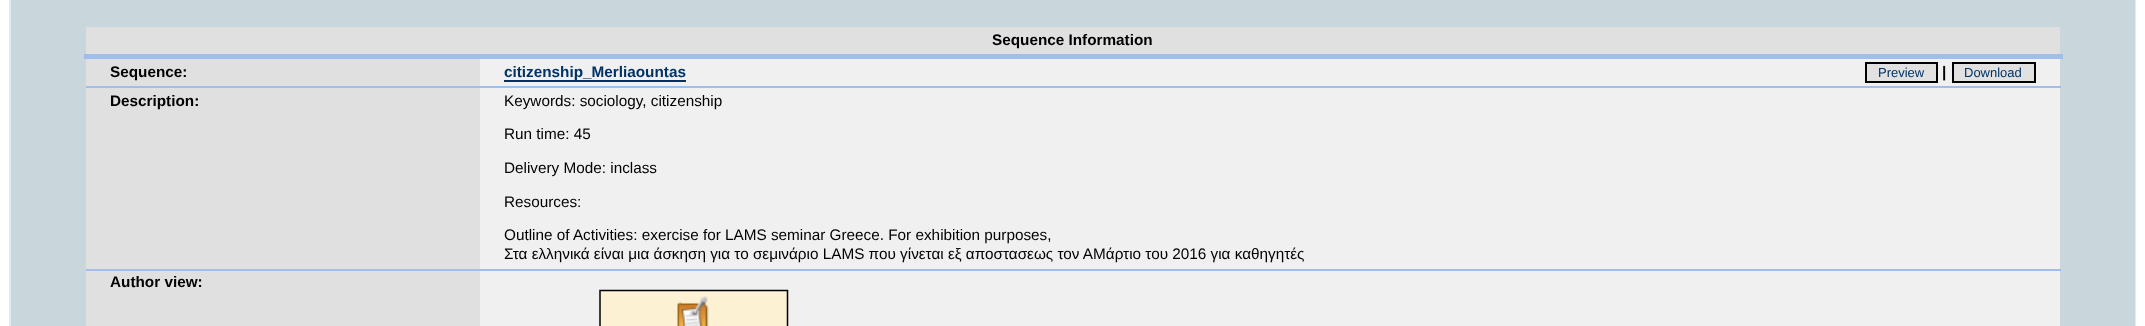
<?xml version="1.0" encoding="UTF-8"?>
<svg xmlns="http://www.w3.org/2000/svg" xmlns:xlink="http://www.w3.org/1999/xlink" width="2145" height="326">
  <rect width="100%" height="100%" fill="#ffffff" />
  <rect x="9" width="2127" height="326" fill="#ddebf5" />
  <rect x="11" width="2124" height="326" fill="#c9d7dc" />
  <rect x="86" y="27" width="1974" height="27" fill="#e0e0e0" />
  <rect x="84" y="54" width="1979" height="5" fill="#a0bdeb" />
  <rect x="86" y="59" width="394" height="27" fill="#e0e0e0" />
  <rect x="480" y="59" width="1580" height="27" fill="#f0f0f0" />
  <rect x="86" y="86" width="1975" height="2" fill="#a0bdeb" />
  <rect x="504" y="80" width="182" height="2" fill="#003366" />
  <rect x="1866" y="63" width="71" height="19" fill="#e1e1e1" stroke="#000000" stroke-width="2" />
  <rect x="1953" y="63" width="82" height="19" fill="#e1e1e1" stroke="#000000" stroke-width="2" />
  <rect x="86" y="88" width="394" height="181" fill="#e0e0e0" />
  <rect x="480" y="88" width="1580" height="181" fill="#f0f0f0" />
  <rect x="86" y="269" width="1975" height="2" fill="#a0bdeb" />
  <rect x="86" y="271" width="394" height="55" fill="#e0e0e0" />
  <rect x="480" y="271" width="1580" height="55" fill="#f0f0f0" />
  <image x="599" y="289" width="190" height="37" xlink:href="image1.png" />
  <text x="992" y="45" style="font-family: Liberation Sans; font-size: 15.3px; font-weight: bold; fill: #000000">Sequence Information</text>
  <text x="110" y="77" style="font-family: Liberation Sans; font-size: 15.3px; font-weight: bold; fill: #000000">Sequence:</text>
  <text x="504" y="77" style="font-family: Liberation Sans; font-size: 15.3px; font-weight: bold; fill: #003366">citizenship_Merliaountas</text>
  <text x="1878" y="77" style="font-family: Liberation Sans; font-size: 13px; fill: #003366">Preview</text>
  <text x="1942" y="77" style="font-family: Liberation Sans; font-size: 15.3px; font-weight: bold; fill: #000000">|</text>
  <text x="1964" y="77" style="font-family: Liberation Sans; font-size: 13px; fill: #003366">Download</text>
  <text x="110" y="106" style="font-family: Liberation Sans; font-size: 15.3px; font-weight: bold; fill: #000000">Description:</text>
  <text x="504" y="106" style="font-family: Liberation Sans; font-size: 15.3px; fill: #000000">Keywords: sociology, citizenship</text>
  <text x="504" y="139" style="font-family: Liberation Sans; font-size: 15.3px; fill: #000000">Run time: 45</text>
  <text x="504" y="173" style="font-family: Liberation Sans; font-size: 15.3px; fill: #000000">Delivery Mode: inclass</text>
  <text x="504" y="207" style="font-family: Liberation Sans; font-size: 15.3px; fill: #000000">Resources:</text>
  <text x="504" y="240" style="font-family: Liberation Sans; font-size: 15.3px; fill: #000000">Outline of Activities: exercise for LAMS seminar Greece. For exhibition purposes,</text>
  <text x="504" y="259" style="font-family: Liberation Sans; font-size: 15.3px; fill: #000000">Στα ελληνικά είναι μια άσκηση για το σεμινάριο LAMS που γίνεται εξ αποστασεως τον ΑΜάρτιο του 2016 για καθηγητές</text>
  <text x="110" y="287" style="font-family: Liberation Sans; font-size: 15.3px; font-weight: bold; fill: #000000">Author view:</text>
</svg>
